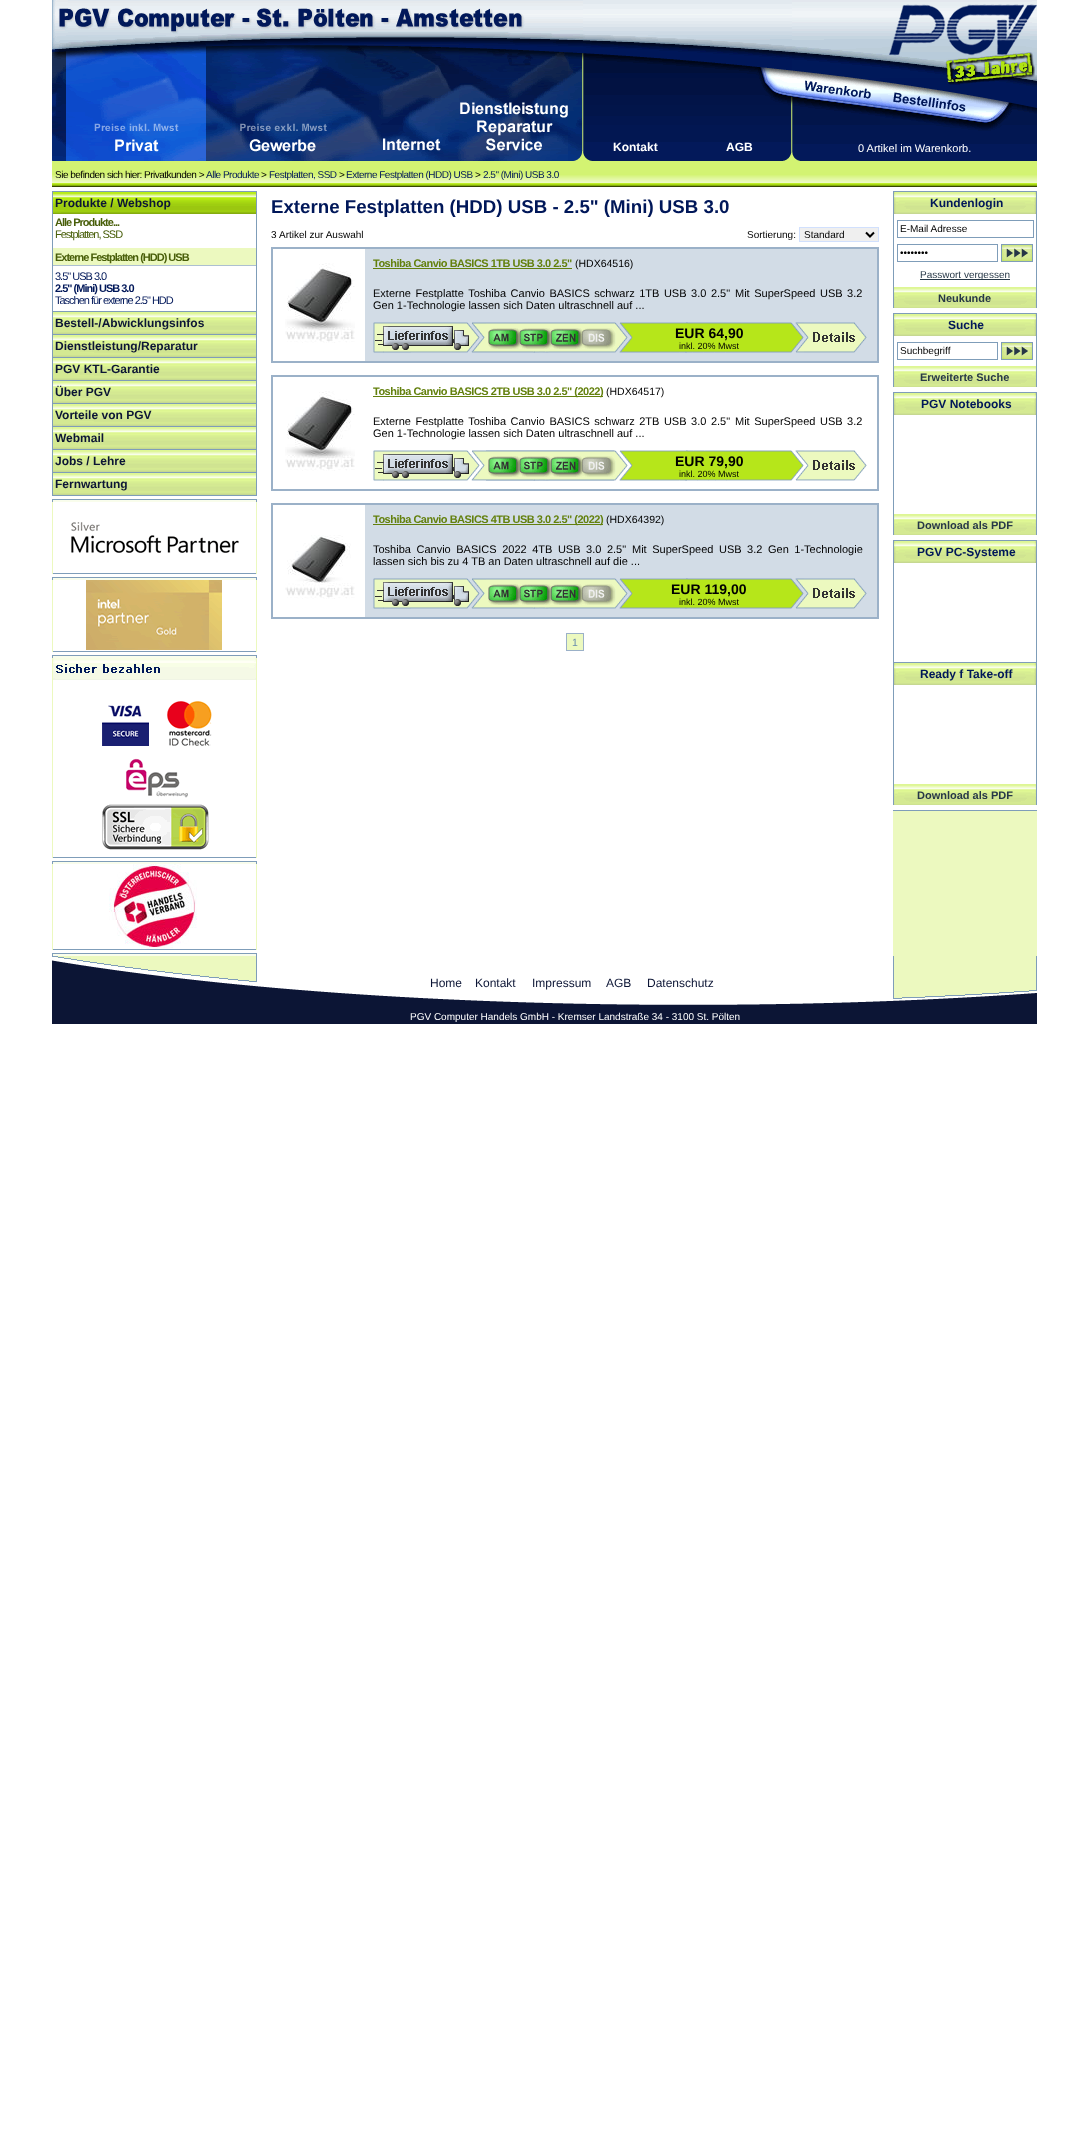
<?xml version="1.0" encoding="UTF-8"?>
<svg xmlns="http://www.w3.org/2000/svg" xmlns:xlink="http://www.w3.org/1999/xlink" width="1089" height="2145">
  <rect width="100%" height="100%" fill="#ffffff" />
  <rect x="364" y="44" width="95" height="1" fill="#061953" />
  <image x="52" y="0" width="531" height="44" xlink:href="image1.png" />
  <image x="52" y="44" width="14" height="117" xlink:href="image2.png" />
  <image x="66" y="44" width="140" height="117" xlink:href="image3.png" />
  <image x="206" y="44" width="158" height="117" xlink:href="image4.png" />
  <image x="364" y="45" width="95" height="116" xlink:href="image5.png" />
  <image x="459" y="44" width="109" height="117" xlink:href="image6.png" />
  <image x="568" y="44" width="15" height="117" xlink:href="image7.png" />
  <image x="583" y="0" width="209" height="78" xlink:href="image8.png" />
  <image x="792" y="0" width="245" height="78" xlink:href="image9.png" />
  <image x="583" y="78" width="209" height="47" xlink:href="image10.png" />
  <image x="792" y="78" width="88" height="47" xlink:href="image11.png" />
  <image x="880" y="78" width="94" height="47" xlink:href="image12.png" />
  <image x="974" y="78" width="63" height="47" xlink:href="image13.png" />
  <image x="583" y="125" width="209" height="36" xlink:href="image14.png" />
  <image x="792" y="125" width="245" height="36" xlink:href="image15.png" />
  <rect x="52" y="161" width="985" height="14" fill="#d3f372" />
  <image x="52" y="175" width="985" height="12" xlink:href="image16.png" />
  <rect x="52" y="502" width="205" height="448" fill="#ecf9bf" />
  <rect x="52.5" y="191.5" width="204" height="304" fill="none" stroke="#7f9db9" />
  <image x="53" y="192" width="203" height="22" xlink:href="image17.png" />
  <rect x="53" y="248" width="203" height="17" fill="#ecf9bf" />
  <rect x="53" y="265" width="203" height="1" fill="#adc0d1" />
  <rect x="53" y="311" width="203" height="1" fill="#7f9db9" />
  <image x="53" y="312" width="203" height="22" xlink:href="image18.png" />
  <rect x="53" y="334" width="203" height="1" fill="#7f9db9" />
  <image x="53" y="335" width="203" height="22" xlink:href="image18.png" />
  <rect x="53" y="357" width="203" height="1" fill="#7f9db9" />
  <image x="53" y="358" width="203" height="22" xlink:href="image18.png" />
  <rect x="53" y="380" width="203" height="1" fill="#7f9db9" />
  <image x="53" y="381" width="203" height="22" xlink:href="image18.png" />
  <rect x="53" y="403" width="203" height="1" fill="#7f9db9" />
  <image x="53" y="404" width="203" height="22" xlink:href="image18.png" />
  <rect x="53" y="426" width="203" height="1" fill="#7f9db9" />
  <image x="53" y="427" width="203" height="22" xlink:href="image18.png" />
  <rect x="53" y="449" width="203" height="1" fill="#7f9db9" />
  <image x="53" y="450" width="203" height="22" xlink:href="image18.png" />
  <rect x="53" y="472" width="203" height="1" fill="#7f9db9" />
  <image x="53" y="473" width="203" height="22" xlink:href="image18.png" />
  <image x="52" y="496" width="205" height="6" xlink:href="image19.png" />
  <rect x="53" y="573" width="203" height="1" fill="#7f9db9" />
  <image x="53" y="502" width="203" height="71" xlink:href="image20.png" />
  <image x="52" y="574" width="205" height="6" xlink:href="image19.png" />
  <rect x="53" y="651" width="203" height="1" fill="#7f9db9" />
  <image x="53" y="580" width="203" height="71" xlink:href="image21.png" />
  <image x="52" y="652" width="205" height="6" xlink:href="image19.png" />
  <rect x="53" y="857" width="203" height="1" fill="#7f9db9" />
  <image x="53" y="658" width="203" height="199" xlink:href="image22.png" />
  <image x="52" y="858" width="205" height="6" xlink:href="image19.png" />
  <rect x="53" y="949" width="203" height="1" fill="#7f9db9" />
  <image x="53" y="864" width="203" height="85" xlink:href="image23.png" />
  <image x="52" y="950" width="205" height="6" xlink:href="image19.png" />
  <rect x="893" y="811" width="144" height="145" fill="#ecf9bf" />
  <rect x="799.5" y="227.5" width="79" height="14" fill="#efefef" stroke="#d1e0fd" />
  <path d="M 866 232.5 l 4 4 l 4 -4" fill="none" stroke="#000000" stroke-width="2" />
  <rect x="271" y="247" width="608" height="2" fill="#9bb1c8" />
  <rect x="271" y="361" width="94" height="2" fill="#9bb1c8" />
  <rect x="271" y="247" width="2" height="116" fill="#9bb1c8" />
  <image x="285" y="263" width="70" height="80" xlink:href="image24.png" />
  <rect x="365" y="249" width="512" height="112" fill="#d2dce6" />
  <rect x="877" y="247" width="2" height="116" fill="#9bb1c8" />
  <rect x="373" y="268" width="199" height="1" fill="#63800d" />
  <rect x="365" y="361" width="514" height="2" fill="#9bb1c8" />
  <image x="373" y="322" width="113" height="31" xlink:href="image25.png" />
  <image x="486" y="322" width="128" height="31" xlink:href="image26.png" />
  <image x="488" y="328" width="30" height="21" xlink:href="image27.png" />
  <image x="518" y="328" width="32" height="21" xlink:href="image28.png" />
  <image x="550" y="328" width="32" height="21" xlink:href="image29.png" />
  <image x="582" y="328" width="32" height="21" xlink:href="image30.png" />
  <image x="614" y="322" width="190" height="31" xlink:href="image31.png" />
  <image x="804" y="322" width="63" height="31" xlink:href="image32.png" />
  <rect x="271" y="375" width="608" height="2" fill="#9bb1c8" />
  <rect x="271" y="489" width="94" height="2" fill="#9bb1c8" />
  <rect x="271" y="375" width="2" height="116" fill="#9bb1c8" />
  <image x="285" y="391" width="70" height="80" xlink:href="image24.png" />
  <rect x="877" y="375" width="2" height="116" fill="#9bb1c8" />
  <rect x="373" y="396" width="230" height="1" fill="#63800d" />
  <rect x="365" y="489" width="514" height="2" fill="#9bb1c8" />
  <image x="373" y="450" width="113" height="31" xlink:href="image33.png" />
  <image x="486" y="450" width="128" height="31" xlink:href="image26.png" />
  <image x="488" y="456" width="30" height="21" xlink:href="image27.png" />
  <image x="518" y="456" width="32" height="21" xlink:href="image28.png" />
  <image x="550" y="456" width="32" height="21" xlink:href="image29.png" />
  <image x="582" y="456" width="32" height="21" xlink:href="image30.png" />
  <image x="614" y="450" width="190" height="31" xlink:href="image34.png" />
  <image x="804" y="450" width="63" height="31" xlink:href="image35.png" />
  <rect x="271" y="503" width="608" height="2" fill="#9bb1c8" />
  <rect x="271" y="617" width="94" height="2" fill="#9bb1c8" />
  <rect x="271" y="503" width="2" height="116" fill="#9bb1c8" />
  <image x="285" y="535" width="70" height="64" xlink:href="image36.png" />
  <rect x="365" y="505" width="512" height="112" fill="#d2dce6" />
  <rect x="877" y="503" width="2" height="116" fill="#9bb1c8" />
  <rect x="373" y="524" width="230" height="1" fill="#63800d" />
  <rect x="365" y="617" width="514" height="2" fill="#9bb1c8" />
  <image x="373" y="578" width="113" height="31" xlink:href="image25.png" />
  <image x="486" y="578" width="128" height="31" xlink:href="image26.png" />
  <image x="488" y="584" width="30" height="21" xlink:href="image27.png" />
  <image x="518" y="584" width="32" height="21" xlink:href="image28.png" />
  <image x="550" y="584" width="32" height="21" xlink:href="image29.png" />
  <image x="582" y="584" width="32" height="21" xlink:href="image30.png" />
  <image x="614" y="578" width="190" height="31" xlink:href="image31.png" />
  <image x="804" y="578" width="63" height="31" xlink:href="image32.png" />
  <rect x="566.5" y="633.5" width="17" height="17" fill="#ecf9bf" stroke="#9bb1c8" />
  <rect x="893" y="191" width="144" height="1" fill="#7f9db9" />
  <rect x="1036" y="191" width="1" height="96" fill="#7f9db9" />
  <rect x="893" y="191" width="1" height="96" fill="#7f9db9" />
  <image x="894" y="192" width="142" height="22" xlink:href="image37.png" />
  <rect x="897.5" y="220.5" width="136" height="17" fill="none" stroke="#7f9db9" />
  <rect x="897.5" y="244.5" width="100" height="17" fill="none" stroke="#7f9db9" />
  <image x="1001" y="244" width="32" height="18" xlink:href="image38.png" />
  <rect x="920" y="279" width="90" height="1" fill="#273847" />
  <image x="893" y="287" width="144" height="21" xlink:href="image39.png" />
  <rect x="893" y="313" width="144" height="1" fill="#7f9db9" />
  <rect x="1036" y="313" width="1" height="53" fill="#7f9db9" />
  <rect x="893" y="313" width="1" height="53" fill="#7f9db9" />
  <image x="894" y="314" width="142" height="22" xlink:href="image37.png" />
  <rect x="897.5" y="342.5" width="100" height="17" fill="none" stroke="#7f9db9" />
  <image x="1001" y="342" width="32" height="18" xlink:href="image38.png" />
  <image x="893" y="366" width="144" height="21" xlink:href="image39.png" />
  <rect x="893" y="392" width="144" height="1" fill="#7f9db9" />
  <rect x="1036" y="392" width="1" height="122" fill="#7f9db9" />
  <rect x="893" y="392" width="1" height="122" fill="#7f9db9" />
  <image x="894" y="393" width="142" height="22" xlink:href="image37.png" />
  <image x="893" y="514" width="144" height="21" xlink:href="image39.png" />
  <rect x="893" y="540" width="144" height="1" fill="#7f9db9" />
  <rect x="1036" y="540" width="1" height="122" fill="#7f9db9" />
  <rect x="893" y="540" width="1" height="122" fill="#7f9db9" />
  <image x="894" y="541" width="142" height="22" xlink:href="image37.png" />
  <rect x="893" y="662" width="144" height="1" fill="#7f9db9" />
  <rect x="1036" y="662" width="1" height="122" fill="#7f9db9" />
  <rect x="893" y="662" width="1" height="122" fill="#7f9db9" />
  <image x="894" y="663" width="142" height="22" xlink:href="image37.png" />
  <image x="893" y="784" width="144" height="21" xlink:href="image39.png" />
  <rect x="893" y="810" width="144" height="1" fill="#7f9db9" />
  <image x="52" y="956" width="985" height="68" xlink:href="image40.png" />
  <text x="613" y="151" style="font-family: Liberation Sans; font-size: 12px; font-weight: bold; fill: #ffffff">Kontakt</text>
  <text x="726" y="151" style="font-family: Liberation Sans; font-size: 12px; font-weight: bold; fill: #ffffff">AGB</text>
  <text x="858" y="152" style="font-family: Liberation Sans; font-size: 11px; fill: #ffffff">0 Artikel im Warenkorb.</text>
  <text x="55" y="178" style="font-family: Liberation Sans; font-size: 10px; letter-spacing: -0.5px; fill: #000000">Sie befinden sich hier:</text>
  <text x="144" y="178" style="font-family: Liberation Sans; font-size: 10px; letter-spacing: -0.5px; fill: #000000">Privatkunden &gt;</text>
  <text x="206" y="178" style="font-family: Liberation Sans; font-size: 10px; letter-spacing: -0.5px; fill: #001759">Alle Produkte</text>
  <text x="261" y="178" style="font-family: Liberation Sans; font-size: 10px; letter-spacing: -0.5px; fill: #000000">&gt;</text>
  <text x="269" y="178" style="font-family: Liberation Sans; font-size: 10px; letter-spacing: -0.5px; fill: #001759">Festplatten, SSD</text>
  <text x="339" y="178" style="font-family: Liberation Sans; font-size: 10px; letter-spacing: -0.5px; fill: #000000">&gt;</text>
  <text x="346" y="178" style="font-family: Liberation Sans; font-size: 10px; letter-spacing: -0.5px; fill: #001759">Externe Festplatten (HDD) USB</text>
  <text x="475" y="178" style="font-family: Liberation Sans; font-size: 10px; letter-spacing: -0.5px; fill: #000000">&gt;</text>
  <text x="483" y="178" style="font-family: Liberation Sans; font-size: 10px; letter-spacing: -0.5px; fill: #001759">2.5" (Mini) USB 3.0</text>
  <text x="55" y="207" style="font-family: Liberation Sans; font-size: 12px; font-weight: bold; fill: #0c1535">Produkte / Webshop</text>
  <text x="55" y="226" style="font-family: Liberation Sans; font-size: 11px; font-weight: bold; letter-spacing: -1px; fill: #485e09">Alle Produkte...</text>
  <text x="55" y="238" style="font-family: Liberation Sans; font-size: 11px; letter-spacing: -1px; fill: #485e09">Festplatten, SSD</text>
  <text x="55" y="261" style="font-family: Liberation Sans; font-size: 11px; font-weight: bold; letter-spacing: -1px; fill: #485e09">Externe Festplatten (HDD) USB</text>
  <text x="55" y="280" style="font-family: Liberation Sans; font-size: 11px; letter-spacing: -1px; fill: #001759">3.5" USB 3.0</text>
  <text x="55" y="292" style="font-family: Liberation Sans; font-size: 11px; font-weight: bold; letter-spacing: -1px; fill: #001759">2.5" (Mini) USB 3.0</text>
  <text x="55" y="304" style="font-family: Liberation Sans; font-size: 11px; letter-spacing: -1px; fill: #001759">Taschen für externe 2.5" HDD</text>
  <text x="55" y="327" style="font-family: Liberation Sans; font-size: 12px; font-weight: bold; fill: #0c1535">Bestell-/Abwicklungsinfos</text>
  <text x="55" y="350" style="font-family: Liberation Sans; font-size: 12px; font-weight: bold; fill: #0c1535">Dienstleistung/Reparatur</text>
  <text x="55" y="373" style="font-family: Liberation Sans; font-size: 12px; font-weight: bold; fill: #0c1535">PGV KTL-Garantie</text>
  <text x="55" y="396" style="font-family: Liberation Sans; font-size: 12px; font-weight: bold; fill: #0c1535">Über PGV</text>
  <text x="55" y="419" style="font-family: Liberation Sans; font-size: 12px; font-weight: bold; fill: #0c1535">Vorteile von PGV</text>
  <text x="55" y="442" style="font-family: Liberation Sans; font-size: 12px; font-weight: bold; fill: #0c1535">Webmail</text>
  <text x="55" y="465" style="font-family: Liberation Sans; font-size: 12px; font-weight: bold; fill: #0c1535">Jobs / Lehre</text>
  <text x="55" y="488" style="font-family: Liberation Sans; font-size: 12px; font-weight: bold; fill: #0c1535">Fernwartung</text>
  <text x="271" y="213" style="font-family: Liberation Sans; font-size: 18.7px; font-weight: bold; fill: #001759">Externe Festplatten (HDD) USB - 2.5" (Mini) USB 3.0</text>
  <text x="271" y="238" style="font-family: Liberation Sans; font-size: 10px; fill: #000000">3</text>
  <text x="279" y="238" style="font-family: Liberation Sans; font-size: 10px; fill: #000000">Artikel zur Auswahl</text>
  <text x="747" y="238" style="font-family: Liberation Sans; font-size: 10px; fill: #000000">Sortierung:</text>
  <text x="804" y="238" style="font-family: Liberation Sans; font-size: 10px; fill: #000000">Standard</text>
  <text x="373" y="267" style="font-family: Liberation Sans; font-size: 11px; font-weight: bold; letter-spacing: -0.5px; fill: #63800d">Toshiba Canvio BASICS 1TB USB 3.0 2.5"</text>
  <text x="575" y="267" style="font-family: Liberation Sans; font-size: 10.5px; fill: #000000">(HDX64516)</text>
  <text x="373" y="297" word-spacing="1.5" style="font-family: Liberation Sans; font-size: 11px; fill: #000000">Externe Festplatte Toshiba Canvio BASICS schwarz 1TB USB 3.0 2.5"</text>
  <text x="735" y="297" word-spacing="1.5" style="font-family: Liberation Sans; font-size: 11px; fill: #000000">Mit SuperSpeed USB 3.2</text>
  <text x="373" y="309" style="font-family: Liberation Sans; font-size: 11px; fill: #000000">Gen 1-Technologie lassen sich Daten ultraschnell auf ...</text>
  <text x="675" y="338" style="font-family: Liberation Sans; font-size: 14px; font-weight: bold; fill: #000000">EUR 64,90</text>
  <text x="679" y="349" style="font-family: Liberation Sans; font-size: 9px; fill: #000000">inkl. 20% Mwst</text>
  <text x="373" y="395" style="font-family: Liberation Sans; font-size: 11px; font-weight: bold; letter-spacing: -0.5px; fill: #63800d">Toshiba Canvio BASICS 2TB USB 3.0 2.5" (2022)</text>
  <text x="606" y="395" style="font-family: Liberation Sans; font-size: 10.5px; fill: #000000">(HDX64517)</text>
  <text x="373" y="425" word-spacing="1.5" style="font-family: Liberation Sans; font-size: 11px; fill: #000000">Externe Festplatte Toshiba Canvio BASICS schwarz 2TB USB 3.0 2.5"</text>
  <text x="735" y="425" word-spacing="1.5" style="font-family: Liberation Sans; font-size: 11px; fill: #000000">Mit SuperSpeed USB 3.2</text>
  <text x="373" y="437" style="font-family: Liberation Sans; font-size: 11px; fill: #000000">Gen 1-Technologie lassen sich Daten ultraschnell auf ...</text>
  <text x="675" y="466" style="font-family: Liberation Sans; font-size: 14px; font-weight: bold; fill: #000000">EUR 79,90</text>
  <text x="679" y="477" style="font-family: Liberation Sans; font-size: 9px; fill: #000000">inkl. 20% Mwst</text>
  <text x="373" y="523" style="font-family: Liberation Sans; font-size: 11px; font-weight: bold; letter-spacing: -0.5px; fill: #63800d">Toshiba Canvio BASICS 4TB USB 3.0 2.5" (2022)</text>
  <text x="606" y="523" style="font-family: Liberation Sans; font-size: 10.5px; fill: #000000">(HDX64392)</text>
  <text x="373" y="553" word-spacing="2.5" style="font-family: Liberation Sans; font-size: 11px; fill: #000000">Toshiba Canvio BASICS 2022 4TB USB 3.0 2.5"</text>
  <text x="632" y="553" word-spacing="2.5" style="font-family: Liberation Sans; font-size: 11px; fill: #000000">Mit SuperSpeed USB 3.2 Gen 1-Technologie</text>
  <text x="373" y="565" style="font-family: Liberation Sans; font-size: 11px; fill: #000000">lassen sich bis zu 4 TB an Daten ultraschnell auf die ...</text>
  <text x="671" y="594" style="font-family: Liberation Sans; font-size: 14px; font-weight: bold; fill: #000000">EUR 119,00</text>
  <text x="679" y="605" style="font-family: Liberation Sans; font-size: 9px; fill: #000000">inkl. 20% Mwst</text>
  <text x="572" y="646" style="font-family: Liberation Sans; font-size: 10.5px; fill: #688cac">1</text>
  <text x="930" y="207" style="font-family: Liberation Sans; font-size: 12px; font-weight: bold; fill: #001759">Kundenlogin</text>
  <text x="900" y="232" style="font-family: Liberation Sans; font-size: 10px; fill: #000000">E-Mail Adresse</text>
  <text x="900" y="256" style="font-family: Liberation Sans; font-size: 10px; fill: #000000">••••••••</text>
  <text x="920" y="278" style="font-family: Liberation Sans; font-size: 10px; fill: #273847">Passwort vergessen</text>
  <text x="938" y="302" style="font-family: Liberation Sans; font-size: 11px; font-weight: bold; fill: #273847">Neukunde</text>
  <text x="948" y="329" style="font-family: Liberation Sans; font-size: 12px; font-weight: bold; fill: #001759">Suche</text>
  <text x="900" y="354" style="font-family: Liberation Sans; font-size: 10px; fill: #000000">Suchbegriff</text>
  <text x="920" y="381" style="font-family: Liberation Sans; font-size: 11px; font-weight: bold; fill: #273847">Erweiterte Suche</text>
  <text x="921" y="408" style="font-family: Liberation Sans; font-size: 12px; font-weight: bold; fill: #001759">PGV Notebooks</text>
  <text x="917" y="529" style="font-family: Liberation Sans; font-size: 11px; font-weight: bold; fill: #273847">Download als PDF</text>
  <text x="917" y="556" style="font-family: Liberation Sans; font-size: 12px; font-weight: bold; fill: #001759">PGV PC-Systeme</text>
  <text x="920" y="678" style="font-family: Liberation Sans; font-size: 12px; font-weight: bold; fill: #001759">Ready f Take-off</text>
  <text x="917" y="799" style="font-family: Liberation Sans; font-size: 11px; font-weight: bold; fill: #273847">Download als PDF</text>
  <text x="430" y="987" style="font-family: Liberation Sans; font-size: 12px; fill: #0c1535">Home</text>
  <text x="475" y="987" style="font-family: Liberation Sans; font-size: 12px; fill: #0c1535">Kontakt</text>
  <text x="532" y="987" style="font-family: Liberation Sans; font-size: 12px; fill: #0c1535">Impressum</text>
  <text x="606" y="987" style="font-family: Liberation Sans; font-size: 12px; fill: #0c1535">AGB</text>
  <text x="647" y="987" style="font-family: Liberation Sans; font-size: 12px; fill: #0c1535">Datenschutz</text>
  <text x="410" y="1020" style="font-family: Liberation Sans; font-size: 10px; fill: #ffffff">PGV Computer Handels GmbH - Kremser Landstraße 34 - 3100 St. Pölten</text>
</svg>
